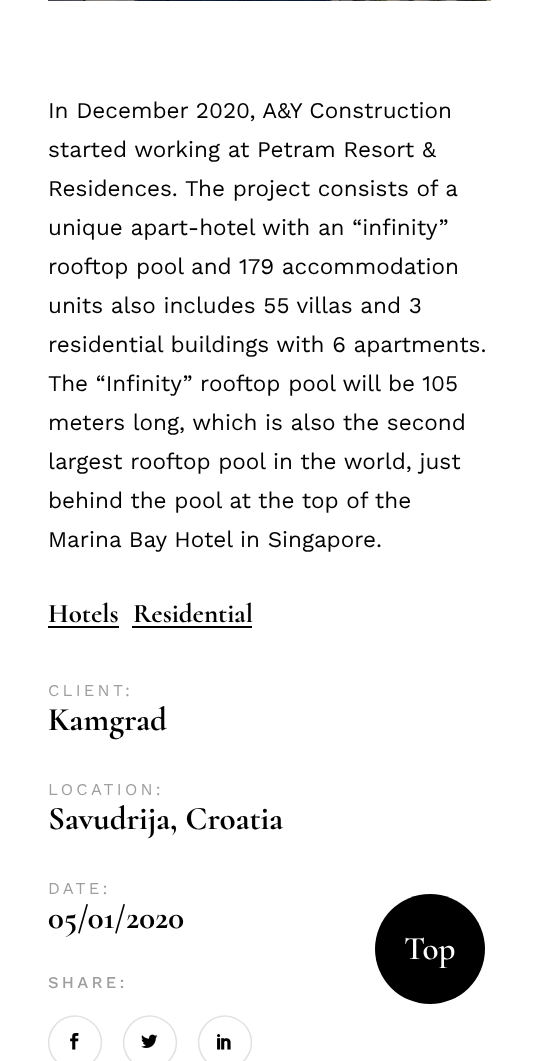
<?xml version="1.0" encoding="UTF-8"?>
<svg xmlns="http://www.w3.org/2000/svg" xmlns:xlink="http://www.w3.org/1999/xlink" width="538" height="1061">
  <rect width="100%" height="100%" fill="#ffffff" />
  <image x="48" y="0" width="443" height="1" xlink:href="image1.png" />
  <rect x="48" y="626" width="71" height="2" fill="#000000" />
  <rect x="132" y="626" width="120" height="2" fill="#000000" />
  <image x="70" y="1033" width="9" height="17" xlink:href="image2.png" />
  <path d="M 60 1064 c -12 -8 -15 -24.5 -6.5 -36.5 c 8 -12 24.5 -15 36.5 -6.5 c 12 8 15 24.5 6.5 36.5 c -8 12 -24.5 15 -36.5 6.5" fill="none" stroke="#e1e1e1" stroke-width="1.5" />
  <image x="141" y="1034" width="17" height="14" xlink:href="image3.png" />
  <path d="M 135 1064 c -12 -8 -15 -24.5 -6.5 -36.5 c 8 -12 24.5 -15 36.5 -6.5 c 12 8 15 24.5 6.5 36.5 c -8 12 -24.5 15 -36.5 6.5" fill="none" stroke="#e1e1e1" stroke-width="1.5" />
  <image x="217" y="1034" width="14" height="16" xlink:href="image4.png" />
  <path d="M 210 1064 c -12 -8 -15 -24.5 -6.5 -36.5 c 8 -12 24.5 -15 36.5 -6.5 c 12 8 15 24.5 6.5 36.5 c -8 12 -24.5 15 -36.5 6.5" fill="none" stroke="#e1e1e1" stroke-width="1.5" />
  <circle cx="430" cy="949" r="55" fill="#000000" />
  <text x="48" y="118" style="font-family: Work Sans; font-size: 22.5px; fill: #000000">In December 2020, A&amp;Y Construction</text>
  <text x="48" y="157" style="font-family: Work Sans; font-size: 22.5px; fill: #000000">started working at Petram Resort &amp;</text>
  <text x="48" y="196" style="font-family: Work Sans; font-size: 22.5px; fill: #000000">Residences. The project consists of a</text>
  <text x="48" y="235" style="font-family: Work Sans; font-size: 22.5px; fill: #000000">unique apart-hotel with an “infinity”</text>
  <text x="48" y="274" style="font-family: Work Sans; font-size: 22.5px; fill: #000000">rooftop pool and 179 accommodation</text>
  <text x="48" y="313" style="font-family: Work Sans; font-size: 22.5px; fill: #000000">units also includes 55 villas and 3</text>
  <text x="48" y="352" style="font-family: Work Sans; font-size: 22.5px; fill: #000000">residential buildings with 6 apartments.</text>
  <text x="48" y="391" style="font-family: Work Sans; font-size: 22.5px; fill: #000000">The “Infinity” rooftop pool will be 105</text>
  <text x="48" y="430" style="font-family: Work Sans; font-size: 22.5px; fill: #000000">meters long, which is also the second</text>
  <text x="48" y="469" style="font-family: Work Sans; font-size: 22.5px; fill: #000000">largest rooftop pool in the world, just</text>
  <text x="48" y="508" style="font-family: Work Sans; font-size: 22.5px; fill: #000000">behind the pool at the top of the</text>
  <text x="48" y="547" style="font-family: Work Sans; font-size: 22.5px; fill: #000000">Marina Bay Hotel in Singapore.</text>
  <text x="48" y="622" style="font-family: Cormorant; font-size: 27px; font-weight: bold; fill: #000000">Hotels</text>
  <text x="133" y="622" style="font-family: Cormorant; font-size: 27px; font-weight: bold; fill: #000000">Residential</text>
  <text x="48" y="696" style="font-family: Work Sans; font-size: 16.5px; letter-spacing: 3.25px; fill: #9e9e9e">CLIENT:</text>
  <text x="48" y="730" style="font-family: Cormorant; font-size: 33px; font-weight: bold; fill: #000000">Kamgrad</text>
  <text x="48" y="795" style="font-family: Work Sans; font-size: 16.5px; letter-spacing: 3.25px; fill: #9e9e9e">LOCATION:</text>
  <text x="48" y="829" style="font-family: Cormorant; font-size: 33px; font-weight: bold; fill: #000000">Savudrija, Croatia</text>
  <text x="48" y="894" style="font-family: Work Sans; font-size: 16.5px; letter-spacing: 3.25px; fill: #9e9e9e">DATE:</text>
  <text x="48" y="928" style="font-family: Cormorant; font-size: 33px; font-weight: bold; fill: #000000">05/01/2020</text>
  <text x="48" y="988" style="font-family: Work Sans; font-size: 16.5px; font-weight: 500; letter-spacing: 3.25px; fill: #9e9e9e">SHARE:</text>
  <text x="404" y="959" style="font-family: Cormorant; font-size: 33px; font-weight: 600; fill: #ffffff">Top</text>
</svg>
